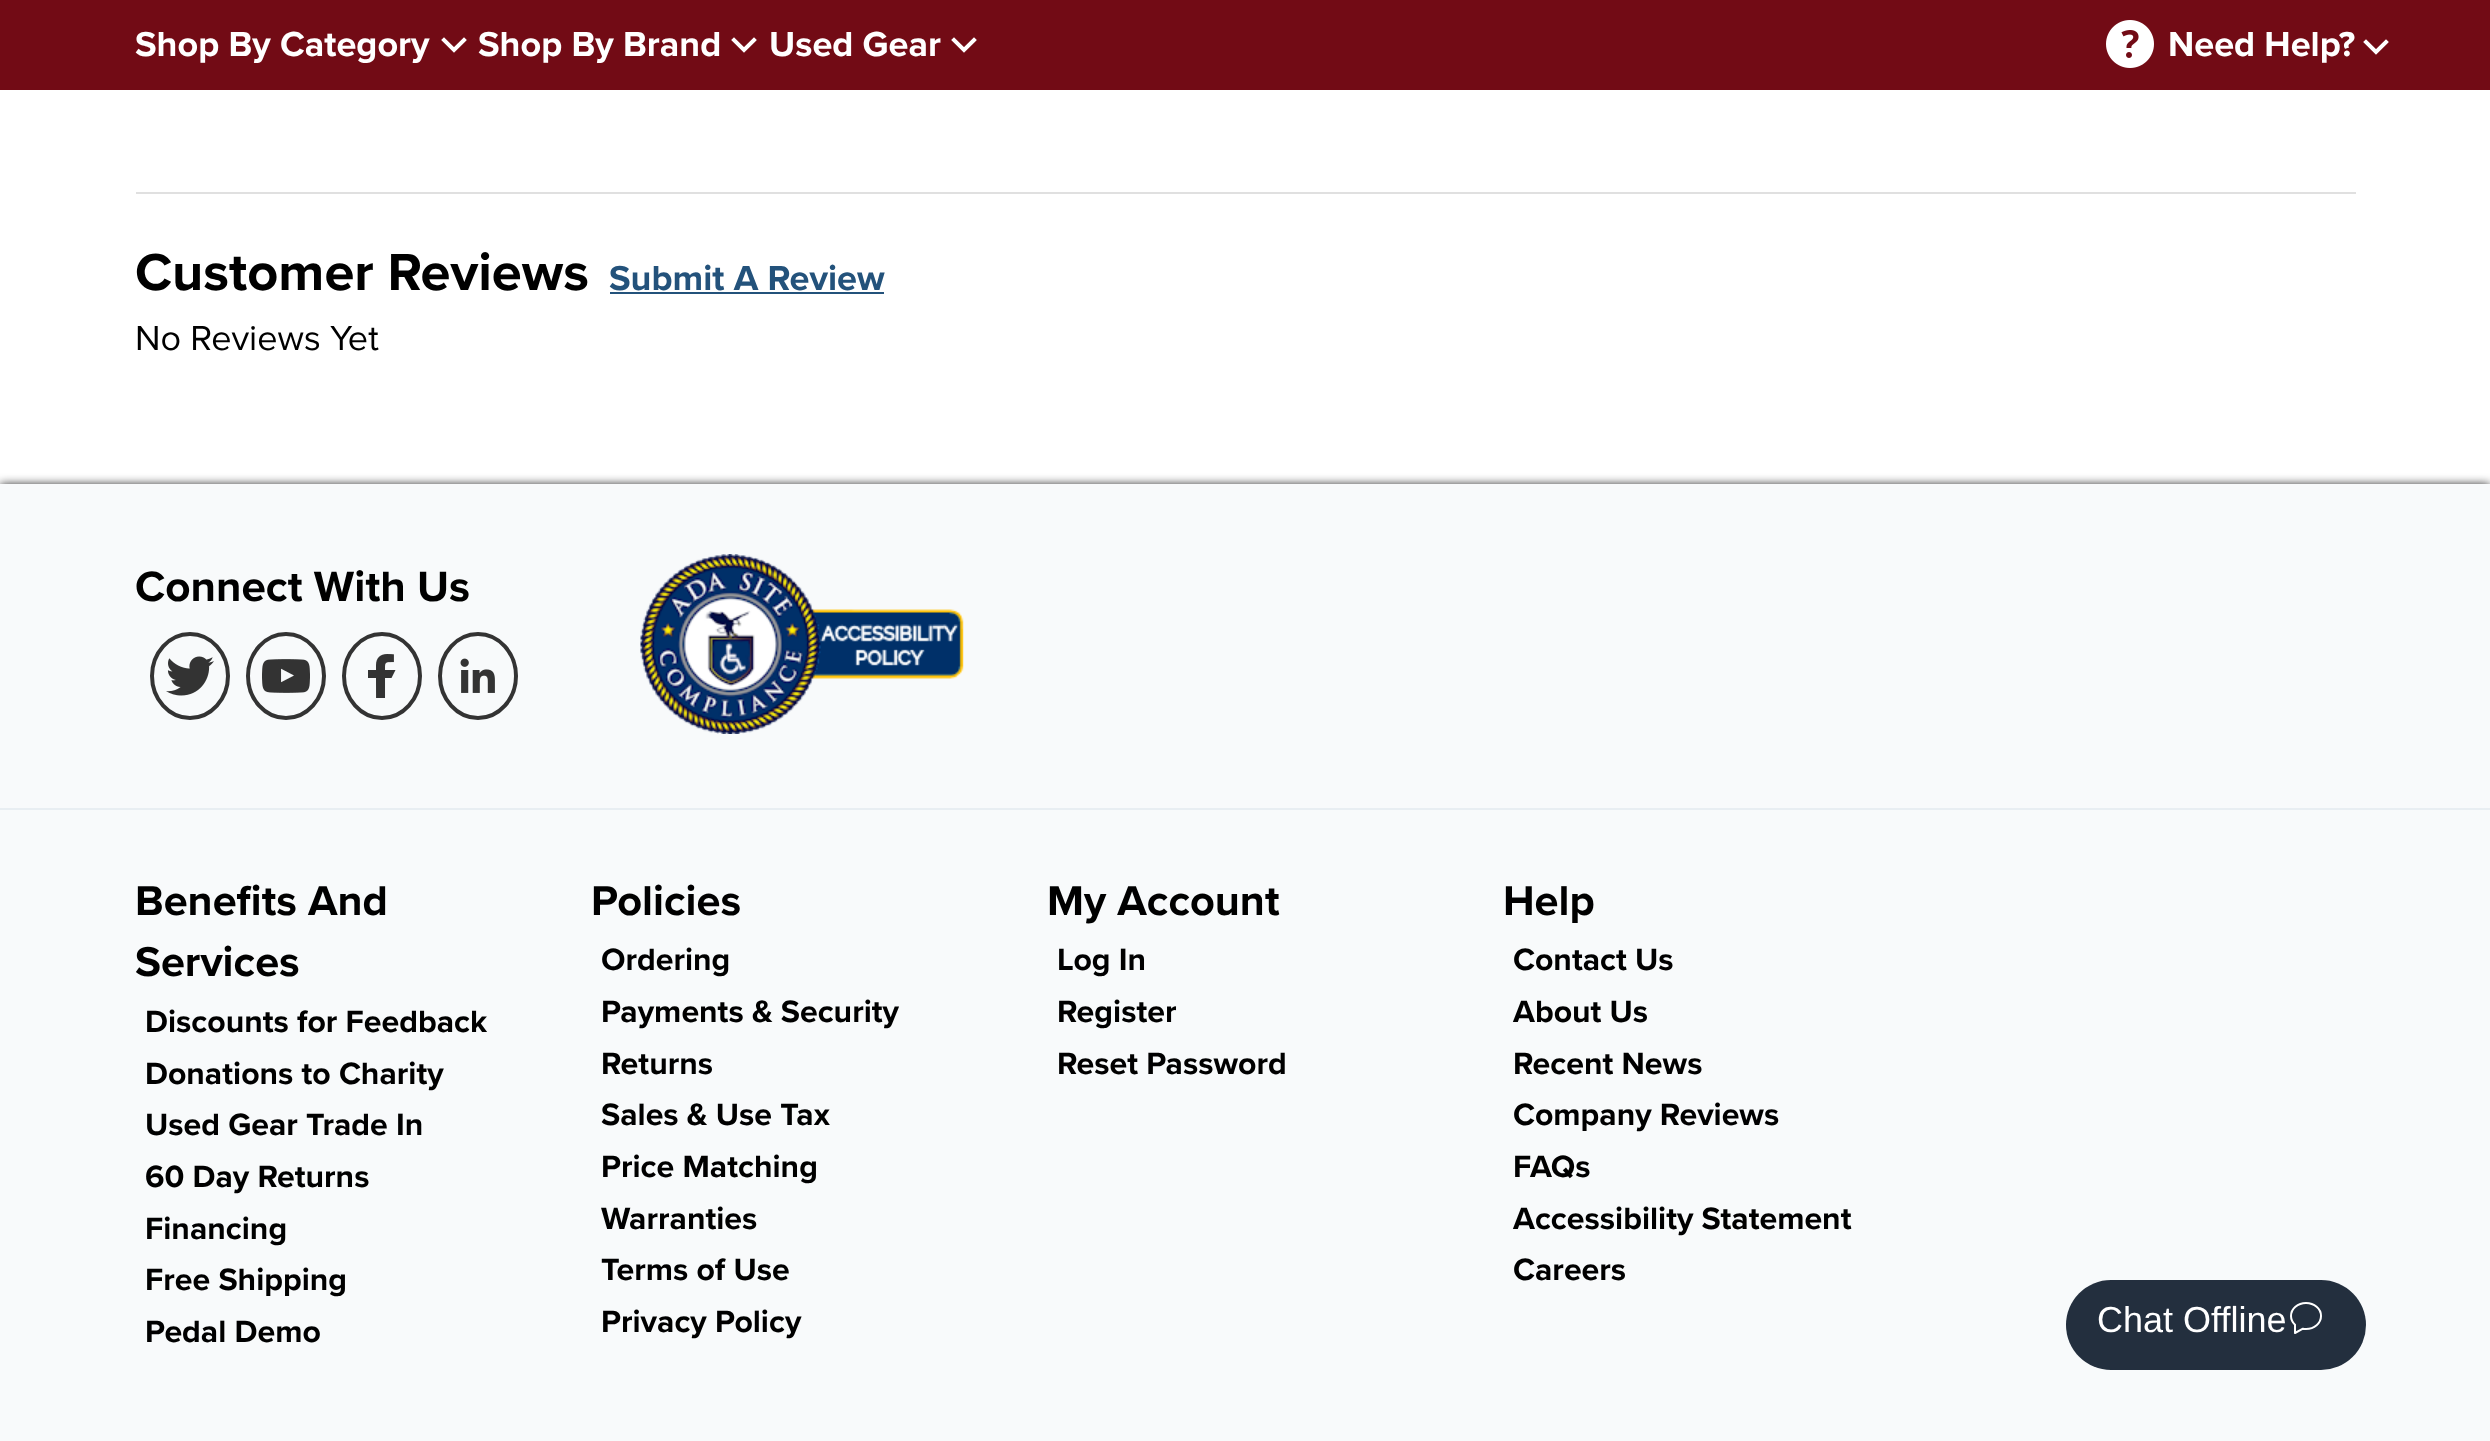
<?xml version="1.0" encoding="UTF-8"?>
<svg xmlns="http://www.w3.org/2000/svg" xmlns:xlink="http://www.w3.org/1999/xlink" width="2490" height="1441">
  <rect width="100%" height="100%" fill="#ffffff" />
  <rect width="2490" height="90" fill="#720b15" />
  <path d="M 464 40 l -10 10 l -10 -10" fill="none" stroke="#ffffff" stroke-width="4" stroke-linecap="square" />
  <path d="M 754 40 l -10 10 l -10 -10" fill="none" stroke="#ffffff" stroke-width="4" stroke-linecap="square" />
  <path d="M 974 40 l -10 10 l -10 -10" fill="none" stroke="#ffffff" stroke-width="4" stroke-linecap="square" />
  <image x="2106" y="20" width="48" height="48" xlink:href="image1.png" />
  <path d="M 2386 42 l -10 10 l -10 -10" fill="none" stroke="#ffffff" stroke-width="4" stroke-linecap="square" />
  <rect x="136" y="192" width="2220" height="2" fill="#e0e0e0" />
  <rect x="610" y="292" width="274" height="2" fill="#23527b" />
  <rect y="484" width="2490" height="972" fill="#333333" filter="blur(5px)" />
  <rect y="484" width="2490" height="957" fill="#f8fafb" />
  <rect y="808" width="2490" height="2" fill="#e8eef2" />
  <path d="M 190 634 c 21 0 38 19 38 42 c 0 23 -17 42 -38 42 c -21 0 -38 -19 -38 -42 c 0 -23 17 -42 38 -42 z" fill="none" stroke="#333333" stroke-width="4" />
  <image x="166" y="656" width="48" height="40" xlink:href="image2.png" />
  <path d="M 286 634 c 21 0 38 19 38 42 c 0 23 -17 42 -38 42 c -21 0 -38 -19 -38 -42 c 0 -23 17 -42 38 -42 z" fill="none" stroke="#333333" stroke-width="4" />
  <image x="262" y="659" width="48" height="34" xlink:href="image3.png" />
  <path d="M 382 634 c 21 0 38 19 38 42 c 0 23 -17 42 -38 42 c -21 0 -38 -19 -38 -42 c 0 -23 17 -42 38 -42 z" fill="none" stroke="#333333" stroke-width="4" />
  <image x="368" y="654" width="28" height="44" xlink:href="image4.png" />
  <path d="M 478 634 c 21 0 38 19 38 42 c 0 23 -17 42 -38 42 c -21 0 -38 -19 -38 -42 c 0 -23 17 -42 38 -42 z" fill="none" stroke="#333333" stroke-width="4" />
  <image x="460" y="658" width="35" height="35" xlink:href="image5.png" />
  <image x="640" y="554" width="324" height="180" xlink:href="image6.png" />
  <rect x="2066" y="1280" width="300" height="90" rx="45" fill="#232f3e" />
  <image x="2290" y="1302" width="32" height="32" xlink:href="image7.png" />
  <text x="135" y="56" style="font-family: Proxima Nova; font-size: 36px; font-weight: bold; fill: #ffffff">Shop By Category</text>
  <text x="478" y="56" style="font-family: Proxima Nova; font-size: 36px; font-weight: bold; fill: #ffffff">Shop By Brand</text>
  <text x="769" y="56" style="font-family: Proxima Nova; font-size: 36px; font-weight: bold; fill: #ffffff">Used Gear</text>
  <text x="2168" y="56" style="font-family: Proxima Nova; font-size: 36px; font-weight: bold; fill: #ffffff">Need Help?</text>
  <text x="135" y="290" style="font-family: Proxima Nova; font-size: 54px; font-weight: bold; fill: #000000">Customer Reviews</text>
  <text x="609" y="290" style="font-family: Proxima Nova; font-size: 36px; font-weight: bold; fill: #23527b">Submit A Review</text>
  <text x="135" y="350" style="font-family: Proxima Nova; font-size: 36px; fill: #000000">No Reviews Yet</text>
  <text x="135" y="601" style="font-family: Proxima Nova; font-size: 44px; font-weight: bold; fill: #000000">Connect With Us</text>
  <text x="135" y="915" style="font-family: Proxima Nova; font-size: 43.25px; font-weight: bold; fill: #000000">Benefits And</text>
  <text x="135" y="976" style="font-family: Proxima Nova; font-size: 43.25px; font-weight: bold; fill: #000000">Services</text>
  <text x="145" y="1032" style="font-family: Proxima Nova; font-size: 32px; font-weight: bold; fill: #000000">Discounts for Feedback</text>
  <text x="145" y="1084" style="font-family: Proxima Nova; font-size: 32px; font-weight: bold; fill: #000000">Donations to Charity</text>
  <text x="145" y="1135" style="font-family: Proxima Nova; font-size: 32px; font-weight: bold; fill: #000000">Used Gear Trade In</text>
  <text x="145" y="1187" style="font-family: Proxima Nova; font-size: 32px; font-weight: bold; fill: #000000">60 Day Returns</text>
  <text x="145" y="1239" style="font-family: Proxima Nova; font-size: 32px; font-weight: bold; fill: #000000">Financing</text>
  <text x="145" y="1290" style="font-family: Proxima Nova; font-size: 32px; font-weight: bold; fill: #000000">Free Shipping</text>
  <text x="145" y="1342" style="font-family: Proxima Nova; font-size: 32px; font-weight: bold; fill: #000000">Pedal Demo</text>
  <text x="591" y="915" style="font-family: Proxima Nova; font-size: 43.25px; font-weight: bold; fill: #000000">Policies</text>
  <text x="601" y="970" style="font-family: Proxima Nova; font-size: 32px; font-weight: bold; fill: #000000">Ordering</text>
  <text x="601" y="1022" style="font-family: Proxima Nova; font-size: 32px; font-weight: bold; fill: #000000">Payments &amp; Security</text>
  <text x="601" y="1074" style="font-family: Proxima Nova; font-size: 32px; font-weight: bold; fill: #000000">Returns</text>
  <text x="601" y="1125" style="font-family: Proxima Nova; font-size: 32px; font-weight: bold; fill: #000000">Sales &amp; Use Tax</text>
  <text x="601" y="1177" style="font-family: Proxima Nova; font-size: 32px; font-weight: bold; fill: #000000">Price Matching</text>
  <text x="601" y="1229" style="font-family: Proxima Nova; font-size: 32px; font-weight: bold; fill: #000000">Warranties</text>
  <text x="601" y="1280" style="font-family: Proxima Nova; font-size: 32px; font-weight: bold; fill: #000000">Terms of Use</text>
  <text x="601" y="1332" style="font-family: Proxima Nova; font-size: 32px; font-weight: bold; fill: #000000">Privacy Policy</text>
  <text x="1047" y="915" style="font-family: Proxima Nova; font-size: 43.25px; font-weight: bold; fill: #000000">My Account</text>
  <text x="1057" y="970" style="font-family: Proxima Nova; font-size: 32px; font-weight: bold; fill: #000000">Log In</text>
  <text x="1057" y="1022" style="font-family: Proxima Nova; font-size: 32px; font-weight: bold; fill: #000000">Register</text>
  <text x="1057" y="1074" style="font-family: Proxima Nova; font-size: 32px; font-weight: bold; fill: #000000">Reset Password</text>
  <text x="1503" y="915" style="font-family: Proxima Nova; font-size: 43.25px; font-weight: bold; fill: #000000">Help</text>
  <text x="1513" y="970" style="font-family: Proxima Nova; font-size: 32px; font-weight: bold; fill: #000000">Contact Us</text>
  <text x="1513" y="1022" style="font-family: Proxima Nova; font-size: 32px; font-weight: bold; fill: #000000">About Us</text>
  <text x="1513" y="1074" style="font-family: Proxima Nova; font-size: 32px; font-weight: bold; fill: #000000">Recent News</text>
  <text x="1513" y="1125" style="font-family: Proxima Nova; font-size: 32px; font-weight: bold; fill: #000000">Company Reviews</text>
  <text x="1513" y="1177" style="font-family: Proxima Nova; font-size: 32px; font-weight: bold; fill: #000000">FAQs</text>
  <text x="1513" y="1229" style="font-family: Proxima Nova; font-size: 32px; font-weight: bold; fill: #000000">Accessibility Statement</text>
  <text x="1513" y="1280" style="font-family: Proxima Nova; font-size: 32px; font-weight: bold; fill: #000000">Careers</text>
  <text x="2097" y="1332" style="font-family: Liberation Sans; font-size: 36px; fill: #ffffff">Chat Offline</text>
</svg>
